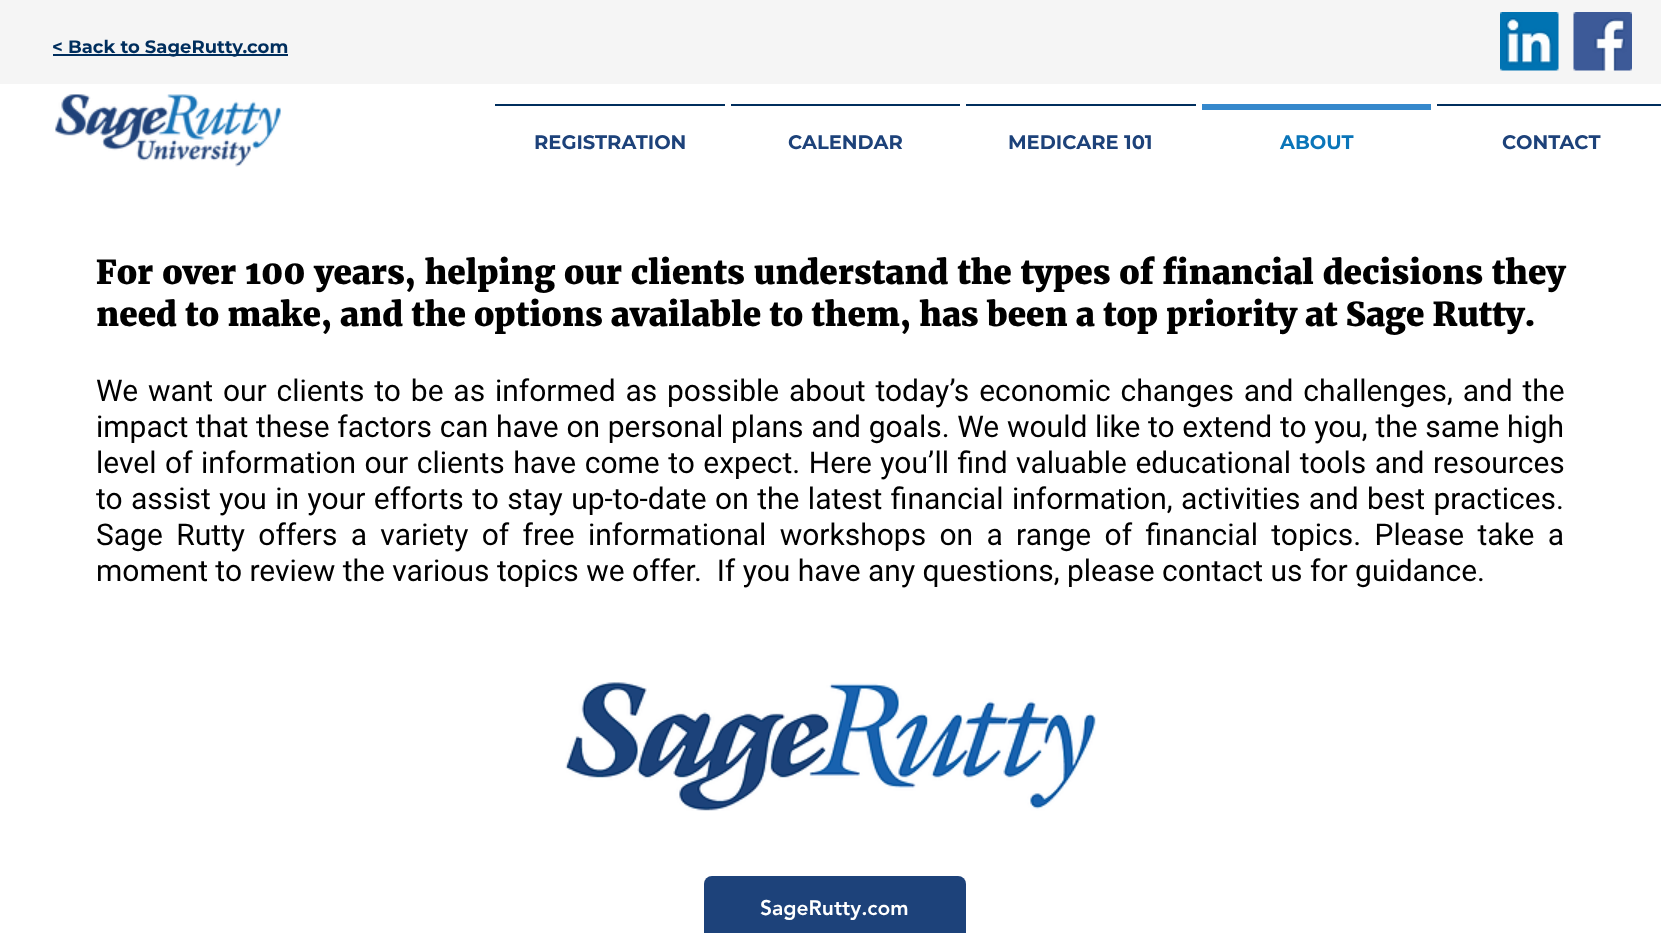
<?xml version="1.0" encoding="UTF-8"?>
<svg xmlns="http://www.w3.org/2000/svg" xmlns:xlink="http://www.w3.org/1999/xlink" width="1661" height="933">
  <rect width="100%" height="100%" fill="#ffffff" />
  <rect width="1661" height="84" fill="#f5f5f5" />
  <rect x="53" y="54" width="235" height="2" fill="#002e5d" />
  <image x="1500" y="12" width="59" height="59" xlink:href="image1.png" />
  <image x="1573" y="12" width="59" height="59" xlink:href="image2.png" />
  <image x="55" y="94" width="226" height="73" xlink:href="image3.png" />
  <rect x="495" y="104" width="230" height="2" fill="#002e5d" />
  <rect x="731" y="104" width="229" height="2" fill="#002e5d" />
  <rect x="966" y="104" width="230" height="2" fill="#002e5d" />
  <rect x="1202" y="104" width="229" height="6" fill="#3588cc" />
  <rect x="1437" y="104" width="224" height="2" fill="#002e5d" />
  <image x="565" y="682" width="531" height="129" xlink:href="image4.png" />
  <rect x="704" y="876" width="262" height="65" rx="8" fill="#1d427a" />
  <text x="52" y="53" style="font-family: Montserrat; font-size: 18px; font-weight: bold; fill: #002e5d">&lt; Back to SageRutty.com</text>
  <text x="534" y="149" style="font-family: Montserrat; font-size: 19.5px; font-weight: bold; fill: #1d427a">REGISTRATION</text>
  <text x="788" y="149" style="font-family: Montserrat; font-size: 19.5px; font-weight: bold; fill: #1d427a">CALENDAR</text>
  <text x="1008" y="149" style="font-family: Montserrat; font-size: 19.5px; font-weight: bold; fill: #1d427a">MEDICARE 101</text>
  <text x="1280" y="149" style="font-family: Montserrat; font-size: 19.5px; font-weight: bold; fill: #0a75b9">ABOUT</text>
  <text x="1502" y="149" style="font-family: Montserrat; font-size: 19.5px; font-weight: bold; fill: #1d427a">CONTACT</text>
  <text x="96" y="284" word-spacing="0.75" style="font-family: Merriweather; font-size: 33px; font-weight: 900; fill: #000000">For over 100 years, helping our clients understand the types of financial decisions they</text>
  <text x="96" y="326" style="font-family: Merriweather; font-size: 33px; font-weight: 900; fill: #000000">need to make, and the options available to them, has been a top priority at Sage Rutty.</text>
  <text x="96" y="401" word-spacing="2.4" style="font-family: Roboto; font-size: 30px; fill: #000000">We want our clients to be as informed as possible about today’s economic changes and challenges, and the</text>
  <text x="96" y="437" word-spacing="0.25" style="font-family: Roboto; font-size: 30px; fill: #000000">impact that these factors can have on personal plans and goals. We would like to extend to you, the same high</text>
  <text x="96" y="473" word-spacing="1.1" style="font-family: Roboto; font-size: 30px; fill: #000000">level of information our clients have come to expect. Here you’ll find valuable educational tools and resources</text>
  <text x="96" y="509" word-spacing="1" style="font-family: Roboto; font-size: 30px; fill: #000000">to assist you in your efforts to stay up-to-date on the latest financial information, activities and best practices.</text>
  <text x="96" y="545" word-spacing="5.9" style="font-family: Roboto; font-size: 30px; fill: #000000">Sage Rutty offers a variety of free informational workshops on a range of financial topics. Please take a</text>
  <text x="96" y="581" style="font-family: Roboto; font-size: 30px; fill: #000000" xml:space="preserve">moment to review the various topics we offer.  If you have any questions, please contact us for guidance.</text>
  <text x="760" y="915" style="font-family: 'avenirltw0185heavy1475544'; font-size: 21px; font-weight: 900; fill: #ffffff">SageRutty.com</text>
</svg>
